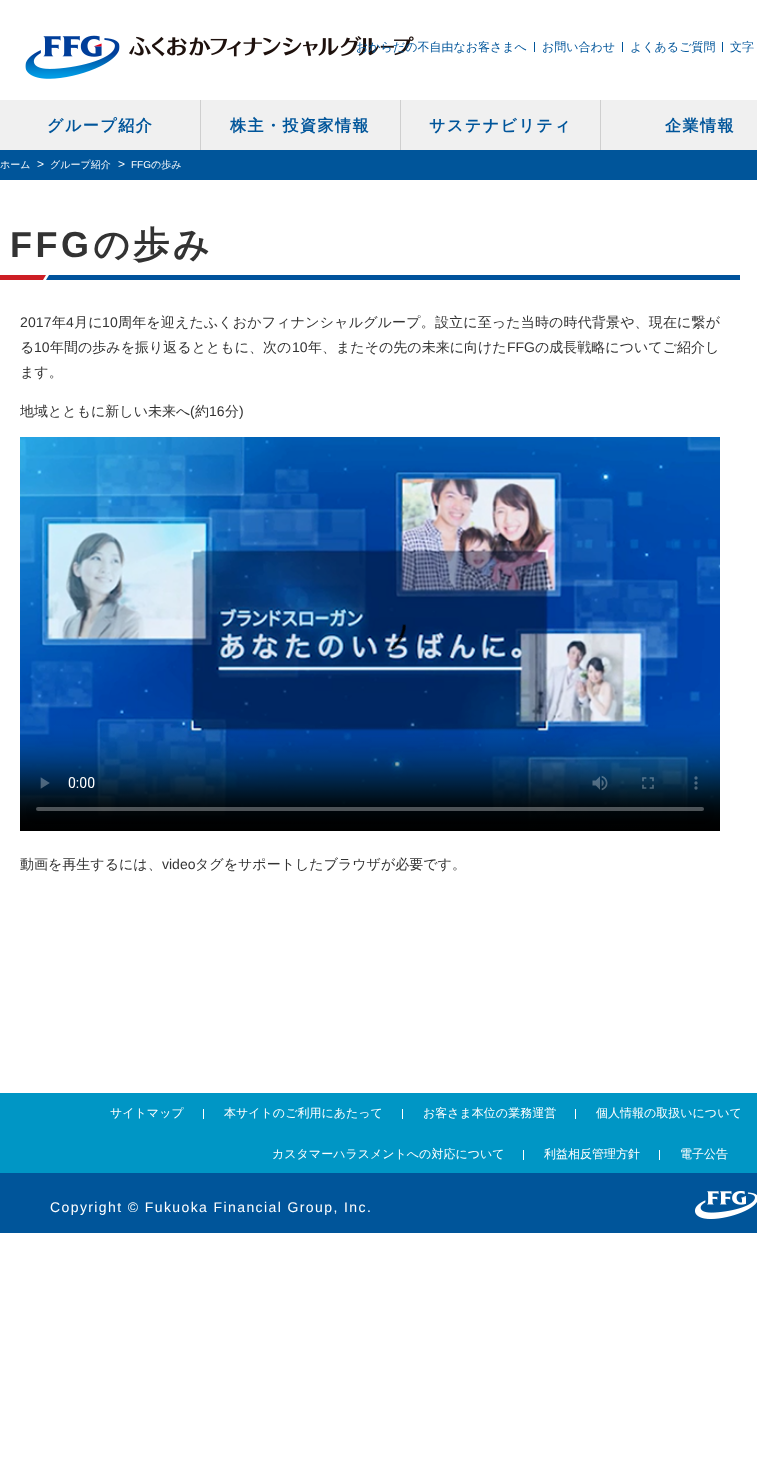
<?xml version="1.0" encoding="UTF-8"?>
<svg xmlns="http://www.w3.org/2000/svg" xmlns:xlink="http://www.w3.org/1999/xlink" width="757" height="1480">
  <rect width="100%" height="100%" fill="#ffffff" />
  <image x="25" y="35" width="389" height="44" xlink:href="image1.png" />
  <rect x="534" y="42" width="1" height="10" fill="#00559a" />
  <rect x="622" y="42" width="1" height="10" fill="#00559a" />
  <rect x="722" y="42" width="1" height="10" fill="#00559a" />
  <rect y="100" width="757" height="50" fill="#f0f0f0" />
  <rect x="200" y="100" width="1" height="50" fill="#cfcfcf" />
  <rect x="400" y="100" width="1" height="50" fill="#cfcfcf" />
  <rect x="600" y="100" width="1" height="50" fill="#cfcfcf" />
  <rect y="150" width="757" height="30" fill="#00559a" />
  <image x="0" y="275" width="740" height="5" xlink:href="image2.png" />
  <image x="20" y="437" width="700" height="394" xlink:href="image3.png" />
  <rect y="1093" width="757" height="80" fill="#0096c5" />
  <rect x="203" y="1109" width="1" height="10" fill="#ffffff" />
  <rect x="402" y="1109" width="1" height="10" fill="#ffffff" />
  <rect x="575" y="1109" width="1" height="10" fill="#ffffff" />
  <rect x="523" y="1150" width="1" height="10" fill="#ffffff" />
  <rect x="659" y="1150" width="1" height="10" fill="#ffffff" />
  <rect y="1173" width="757" height="60" fill="#00559a" />
  <image x="695" y="1191" width="62" height="28" xlink:href="image4.png" />
  <text x="356" y="51" style="font-family: WenQuanYi Zen Hei; font-size: 12px; font-weight: 500; fill: #00559a">おからだの不自由なお客さまへ</text>
  <text x="542" y="51" style="font-family: WenQuanYi Zen Hei; font-size: 12px; font-weight: 500; fill: #00559a">お問い合わせ</text>
  <text x="630" y="51" style="font-family: WenQuanYi Zen Hei; font-size: 12px; font-weight: 500; fill: #00559a">よくあるご質問</text>
  <text x="730" y="51" style="font-family: WenQuanYi Zen Hei; font-size: 12px; font-weight: 500; fill: #00559a">文字</text>
  <text x="47" y="131" style="font-family: WenQuanYi Zen Hei; font-size: 16px; font-weight: bold; letter-spacing: 1.5px; fill: #00559a">グループ紹介</text>
  <text x="230" y="131" style="font-family: WenQuanYi Zen Hei; font-size: 16px; font-weight: bold; letter-spacing: 1.5px; fill: #00559a">株主・投資家情報</text>
  <text x="429" y="131" style="font-family: WenQuanYi Zen Hei; font-size: 16px; font-weight: bold; letter-spacing: 1.5px; fill: #00559a">サステナビリティ</text>
  <text x="665" y="131" style="font-family: WenQuanYi Zen Hei; font-size: 16px; font-weight: bold; letter-spacing: 1.5px; fill: #00559a">企業情報</text>
  <text x="0" y="168" style="font-family: WenQuanYi Zen Hei; font-size: 10px; font-weight: 500; fill: #ffffff">ホーム</text>
  <text x="37" y="168" style="font-family: Liberation Sans; font-size: 12px; fill: #ffffff">&gt;</text>
  <text x="50" y="168" style="font-family: WenQuanYi Zen Hei; font-size: 10px; font-weight: 500; fill: #ffffff">グループ紹介</text>
  <text x="118" y="168" style="font-family: Liberation Sans; font-size: 12px; fill: #ffffff">&gt;</text>
  <text x="131" y="168" style="font-family: Liberation Sans; font-size: 10px; fill: #ffffff">FFG</text>
  <text x="151" y="168" style="font-family: WenQuanYi Zen Hei; font-size: 10px; font-weight: 500; fill: #ffffff">の歩み</text>
  <text x="10" y="257" style="font-family: Liberation Sans; font-size: 36px; font-weight: bold; letter-spacing: 3.5px; fill: #333333">FFG</text>
  <text x="93" y="257" style="font-family: WenQuanYi Zen Hei; font-size: 36px; font-weight: bold; letter-spacing: 3.5px; fill: #333333">の歩み</text>
  <text x="20" y="327" style="font-family: Liberation Sans; font-size: 14px; letter-spacing: 0.15px; fill: #333333">2017</text>
  <text x="52" y="327" style="font-family: WenQuanYi Zen Hei; font-size: 14px; font-weight: 500; letter-spacing: 0.15px; fill: #333333">年</text>
  <text x="66" y="327" style="font-family: Liberation Sans; font-size: 14px; letter-spacing: 0.15px; fill: #333333">4</text>
  <text x="74" y="327" style="font-family: WenQuanYi Zen Hei; font-size: 14px; font-weight: 500; letter-spacing: 0.15px; fill: #333333">月に</text>
  <text x="102" y="327" style="font-family: Liberation Sans; font-size: 14px; letter-spacing: 0.15px; fill: #333333">10</text>
  <text x="118" y="327" style="font-family: WenQuanYi Zen Hei; font-size: 14px; font-weight: 500; letter-spacing: 0.15px; fill: #333333">周年を迎えたふくおかフィナンシャルグループ。設立に至った当時の時代背景や、現在に繋が</text>
  <text x="20" y="352" style="font-family: WenQuanYi Zen Hei; font-size: 14px; font-weight: 500; fill: #333333">る</text>
  <text x="34" y="352" style="font-family: Liberation Sans; font-size: 14px; fill: #333333">10</text>
  <text x="50" y="352" style="font-family: WenQuanYi Zen Hei; font-size: 14px; font-weight: 500; fill: #333333">年間の歩みを振り返るとともに、次の</text>
  <text x="292" y="352" style="font-family: Liberation Sans; font-size: 14px; fill: #333333">10</text>
  <text x="308" y="352" style="font-family: WenQuanYi Zen Hei; font-size: 14px; font-weight: 500; fill: #333333">年、またその先の未来に向けた</text>
  <text x="507" y="352" style="font-family: Liberation Sans; font-size: 14px; fill: #333333">FFG</text>
  <text x="535" y="352" style="font-family: WenQuanYi Zen Hei; font-size: 14px; font-weight: 500; fill: #333333">の成長戦略についてご紹介し</text>
  <text x="20" y="377" style="font-family: WenQuanYi Zen Hei; font-size: 14px; font-weight: 500; fill: #333333">ます。</text>
  <text x="20" y="416" style="font-family: WenQuanYi Zen Hei; font-size: 14px; font-weight: 500; fill: #333333">地域とともに新しい未来へ</text>
  <text x="190" y="416" style="font-family: Liberation Sans; font-size: 14px; fill: #333333">(</text>
  <text x="195" y="416" style="font-family: WenQuanYi Zen Hei; font-size: 14px; font-weight: 500; fill: #333333">約</text>
  <text x="209" y="416" style="font-family: Liberation Sans; font-size: 14px; fill: #333333">16</text>
  <text x="225" y="416" style="font-family: WenQuanYi Zen Hei; font-size: 14px; font-weight: 500; fill: #333333">分</text>
  <text x="239" y="416" style="font-family: Liberation Sans; font-size: 14px; fill: #333333">)</text>
  <text x="20" y="869" style="font-family: WenQuanYi Zen Hei; font-size: 14px; font-weight: 500; fill: #333333">動画を再生するには、</text>
  <text x="162" y="869" style="font-family: Liberation Sans; font-size: 14px; fill: #333333">video</text>
  <text x="195" y="869" style="font-family: WenQuanYi Zen Hei; font-size: 14px; font-weight: 500; fill: #333333">タグをサポートしたブラウザが必要です。</text>
  <text x="110" y="1117" style="font-family: WenQuanYi Zen Hei; font-size: 12px; font-weight: 500; fill: #ffffff">サイトマップ</text>
  <text x="224" y="1117" style="font-family: WenQuanYi Zen Hei; font-size: 12px; font-weight: 500; fill: #ffffff">本サイトのご利用にあたって</text>
  <text x="423" y="1117" style="font-family: WenQuanYi Zen Hei; font-size: 12px; font-weight: 500; fill: #ffffff">お客さま本位の業務運営</text>
  <text x="596" y="1117" style="font-family: WenQuanYi Zen Hei; font-size: 12px; font-weight: 500; fill: #ffffff">個人情報の取扱いについて</text>
  <text x="272" y="1158" style="font-family: WenQuanYi Zen Hei; font-size: 12px; font-weight: 500; fill: #ffffff">カスタマーハラスメントへの対応について</text>
  <text x="544" y="1158" style="font-family: WenQuanYi Zen Hei; font-size: 12px; font-weight: 500; fill: #ffffff">利益相反管理方針</text>
  <text x="680" y="1158" style="font-family: WenQuanYi Zen Hei; font-size: 12px; font-weight: 500; fill: #ffffff">電子公告</text>
  <text x="50" y="1212" style="font-family: Liberation Sans; font-size: 14px; letter-spacing: 1.4px; fill: #ffffff">Copyright © Fukuoka Financial Group, Inc.</text>
</svg>
